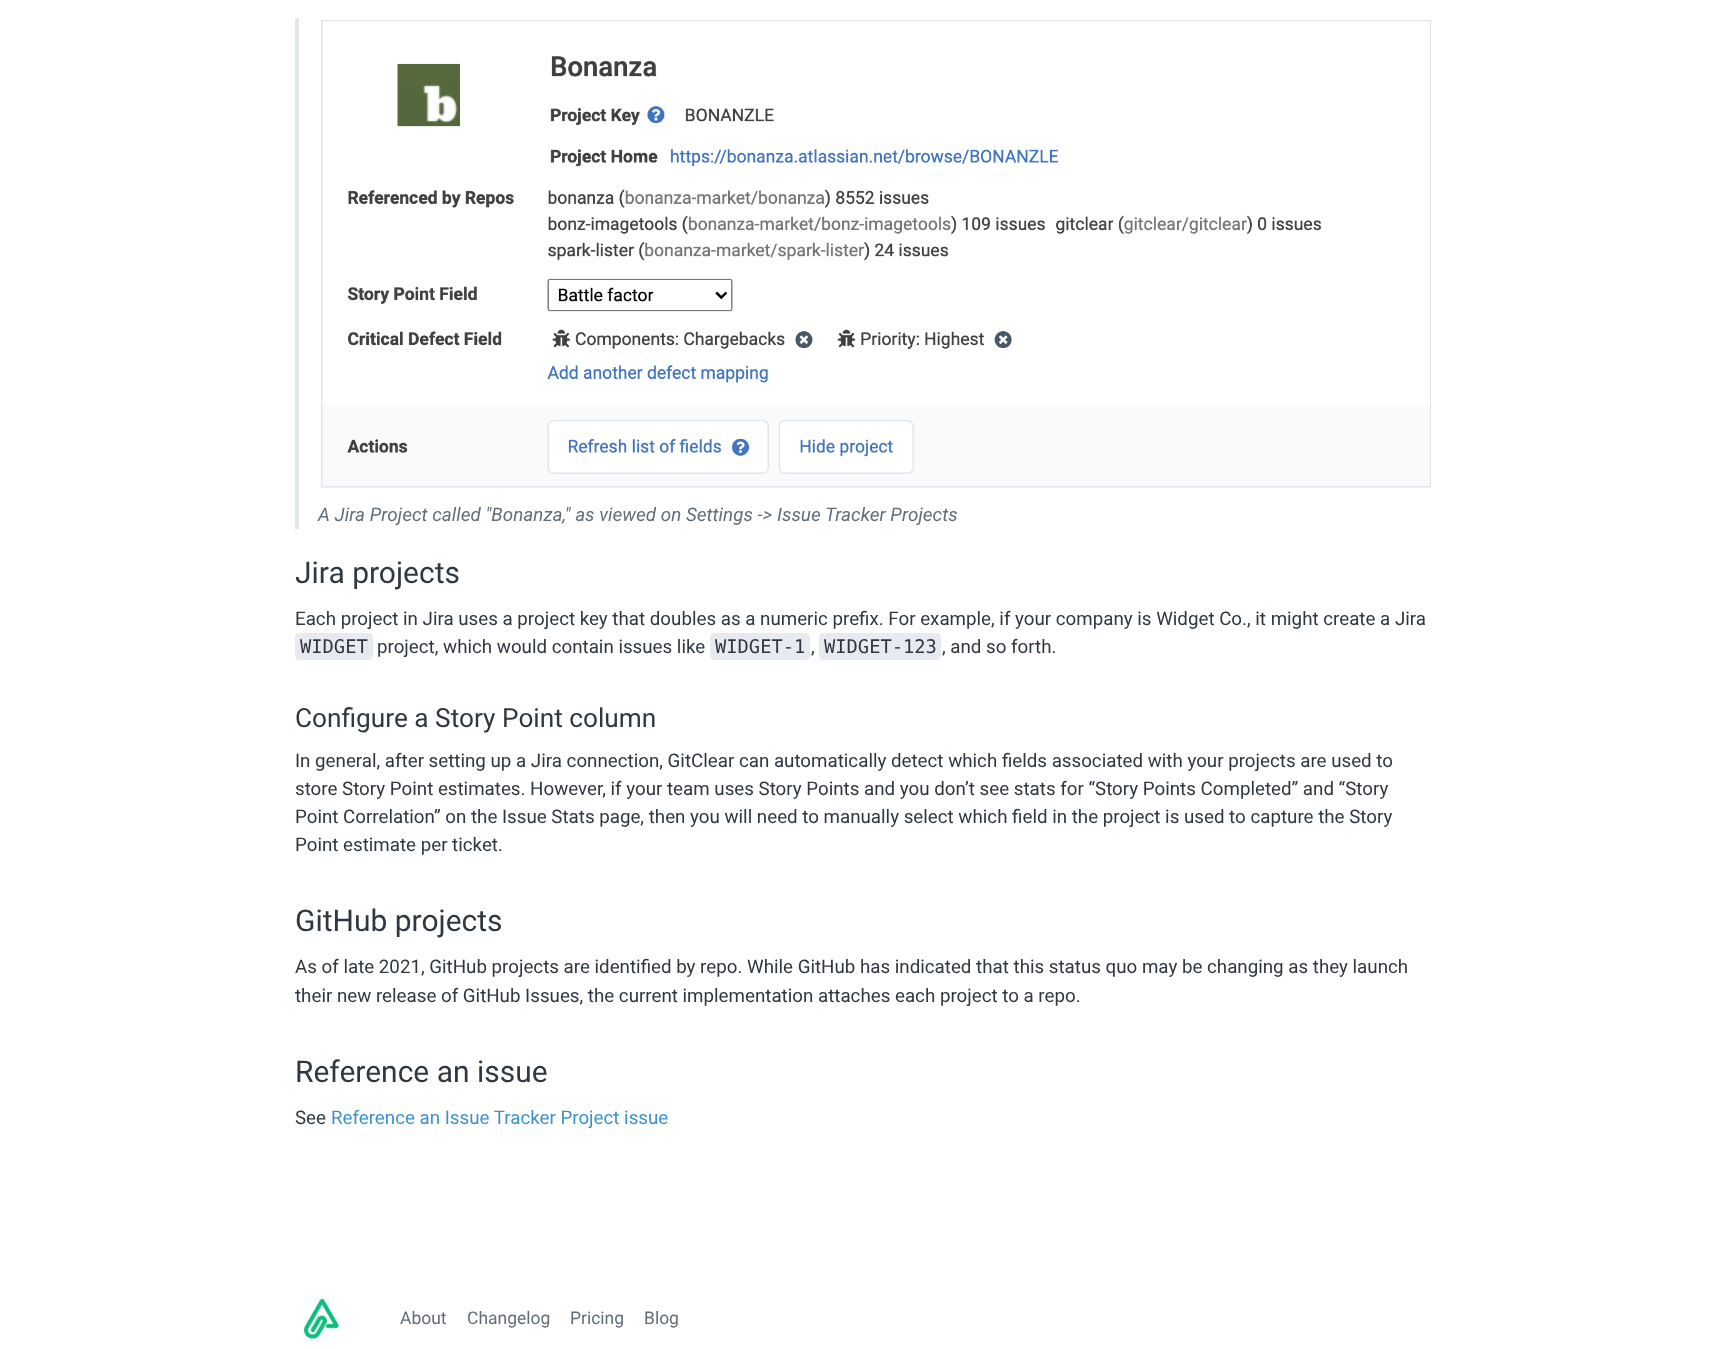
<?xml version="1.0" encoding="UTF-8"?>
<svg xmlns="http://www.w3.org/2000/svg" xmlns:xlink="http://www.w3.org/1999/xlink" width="1730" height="1349">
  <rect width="100%" height="100%" fill="#ffffff" />
  <rect x="295" y="18" width="4" height="511" fill="#e1e6eb" />
  <image x="321" y="20" width="1110" height="468" xlink:href="image1.png" />
  <path d="M 364 660 h 5 c 2 0 4 -2 4 -4 v -19 c 0 -2 -2 -4 -4 -4 h -3.5 c 1 0.5 2 2 2 3 v 20 c 0 2.5 -1.5 4 -3.5 4 z" fill="#e7ebef" />
  <path d="M 299 633 c -2 0 -4 2 -4 4 v 19 c 0 2 2 4 4 4 h 5 c -2.5 0 -4 -1.5 -4 -4 v -20 c 0 -1 1 -2.5 2 -3 z" fill="#e7ebef" />
  <rect x="300" y="633" width="68" height="27" rx="4" fill="#b4bfcc" fill-opacity="0.32" />
  <path d="M 801 660 h 5 c 2 0 4 -2 4 -4 v -19 c 0 -2 -2 -4 -4 -4 h -3 c 1 0.5 2 2 2 3 v 20 c 0 2.5 -1.5 4 -4 4 z" fill="#e7ebef" />
  <path d="M 714 633 c -2 0 -4 2 -4 4 v 19 c 0 2 2 4 4 4 h 5 c -2.5 0 -4 -1.5 -4 -4 v -20 c 0 -1 1 -2.5 2 -3 z" fill="#e7ebef" />
  <rect x="715" y="633" width="90" height="27" rx="4" fill="#b4bfcc" fill-opacity="0.32" />
  <path d="M 932.5 660 h 4.5 c 2 0 4 -2 4 -4 v -19 c 0 -2 -2 -4 -4 -4 h -2.5 c 1 0.5 1.5 2 1.5 3 v 20 c 0 2.5 -1.5 4 -3.5 4 z" fill="#e7ebef" />
  <path d="M 823 633 c -2 0 -4 2 -4 4 v 19 c 0 2 2 4 4 4 h 4.5 c -2 0 -3.5 -1.5 -3.5 -4 v -20 c 0 -1 0.5 -2.5 1.5 -3 z" fill="#e7ebef" />
  <rect x="824" y="633" width="112" height="27" rx="4" fill="#b4bfcc" fill-opacity="0.32" />
  <image x="304" y="1299" width="35" height="40" xlink:href="image2.png" />
  <text x="318" y="521" style="font-family: Roboto; font-size: 18.75px; font-style: italic; fill: #626d7a">A Jira Project called "Bonanza," as viewed on Settings -&gt; Issue Tracker Projects</text>
  <text x="295" y="583" style="font-family: Roboto; font-size: 30px; fill: #2f3740">Jira projects</text>
  <text x="295" y="625" style="font-family: Roboto; font-size: 18.75px; fill: #2f3740">Each project in Jira uses a project key that doubles as a numeric prefix. For example, if your company is Widget Co., it might create a Jira</text>
  <text x="300" y="653" style="font-family: DejaVu Sans Mono; font-size: 18.75px; fill: #2f3740">WIDGET</text>
  <text x="377" y="653" style="font-family: Roboto; font-size: 18.75px; fill: #2f3740">project, which would contain issues like</text>
  <text x="715" y="653" style="font-family: DejaVu Sans Mono; font-size: 18.75px; fill: #2f3740">WIDGET-1</text>
  <text x="811" y="653" style="font-family: Roboto; font-size: 18.75px; fill: #2f3740">,</text>
  <text x="824" y="653" style="font-family: DejaVu Sans Mono; font-size: 18.75px; fill: #2f3740">WIDGET-123</text>
  <text x="942" y="653" style="font-family: Roboto; font-size: 18.75px; fill: #2f3740">, and so forth.</text>
  <text x="295" y="727" style="font-family: Roboto; font-size: 26.25px; fill: #2f3740">Configure a Story Point column</text>
  <text x="295" y="767" style="font-family: Roboto; font-size: 18.75px; fill: #2f3740">In general, after setting up a Jira connection, GitClear can automatically detect which fields associated with your projects are used to</text>
  <text x="295" y="795" style="font-family: Roboto; font-size: 18.75px; fill: #2f3740">store Story Point estimates. However, if your team uses Story Points and you don’t see stats for “Story Points Completed” and “Story</text>
  <text x="295" y="823" style="font-family: Roboto; font-size: 18.75px; fill: #2f3740">Point Correlation” on the Issue Stats page, then you will need to manually select which field in the project is used to capture the Story</text>
  <text x="295" y="851" style="font-family: Roboto; font-size: 18.75px; fill: #2f3740">Point estimate per ticket.</text>
  <text x="295" y="931" style="font-family: Roboto; font-size: 30px; fill: #2f3740">GitHub projects</text>
  <text x="295" y="973" style="font-family: Roboto; font-size: 18.75px; fill: #2f3740">As of late 2021, GitHub projects are identified by repo. While GitHub has indicated that this status quo may be changing as they launch</text>
  <text x="295" y="1002" style="font-family: Roboto; font-size: 18.75px; fill: #2f3740">their new release of GitHub Issues, the current implementation attaches each project to a repo.</text>
  <text x="295" y="1082" style="font-family: Roboto; font-size: 30px; fill: #2f3740">Reference an issue</text>
  <text x="295" y="1124" style="font-family: Roboto; font-size: 18.75px; fill: #2f3740">See</text>
  <text x="331" y="1124" style="font-family: Roboto; font-size: 18.75px; fill: #3e92cc">Reference an Issue Tracker Project issue</text>
  <text x="400" y="1324" style="font-family: Roboto; font-size: 17.5px; fill: #626d7a">About</text>
  <text x="467" y="1324" style="font-family: Roboto; font-size: 17.5px; fill: #626d7a">Changelog</text>
  <text x="570" y="1324" style="font-family: Roboto; font-size: 17.5px; fill: #626d7a">Pricing</text>
  <text x="644" y="1324" style="font-family: Roboto; font-size: 17.5px; fill: #626d7a">Blog</text>
</svg>
